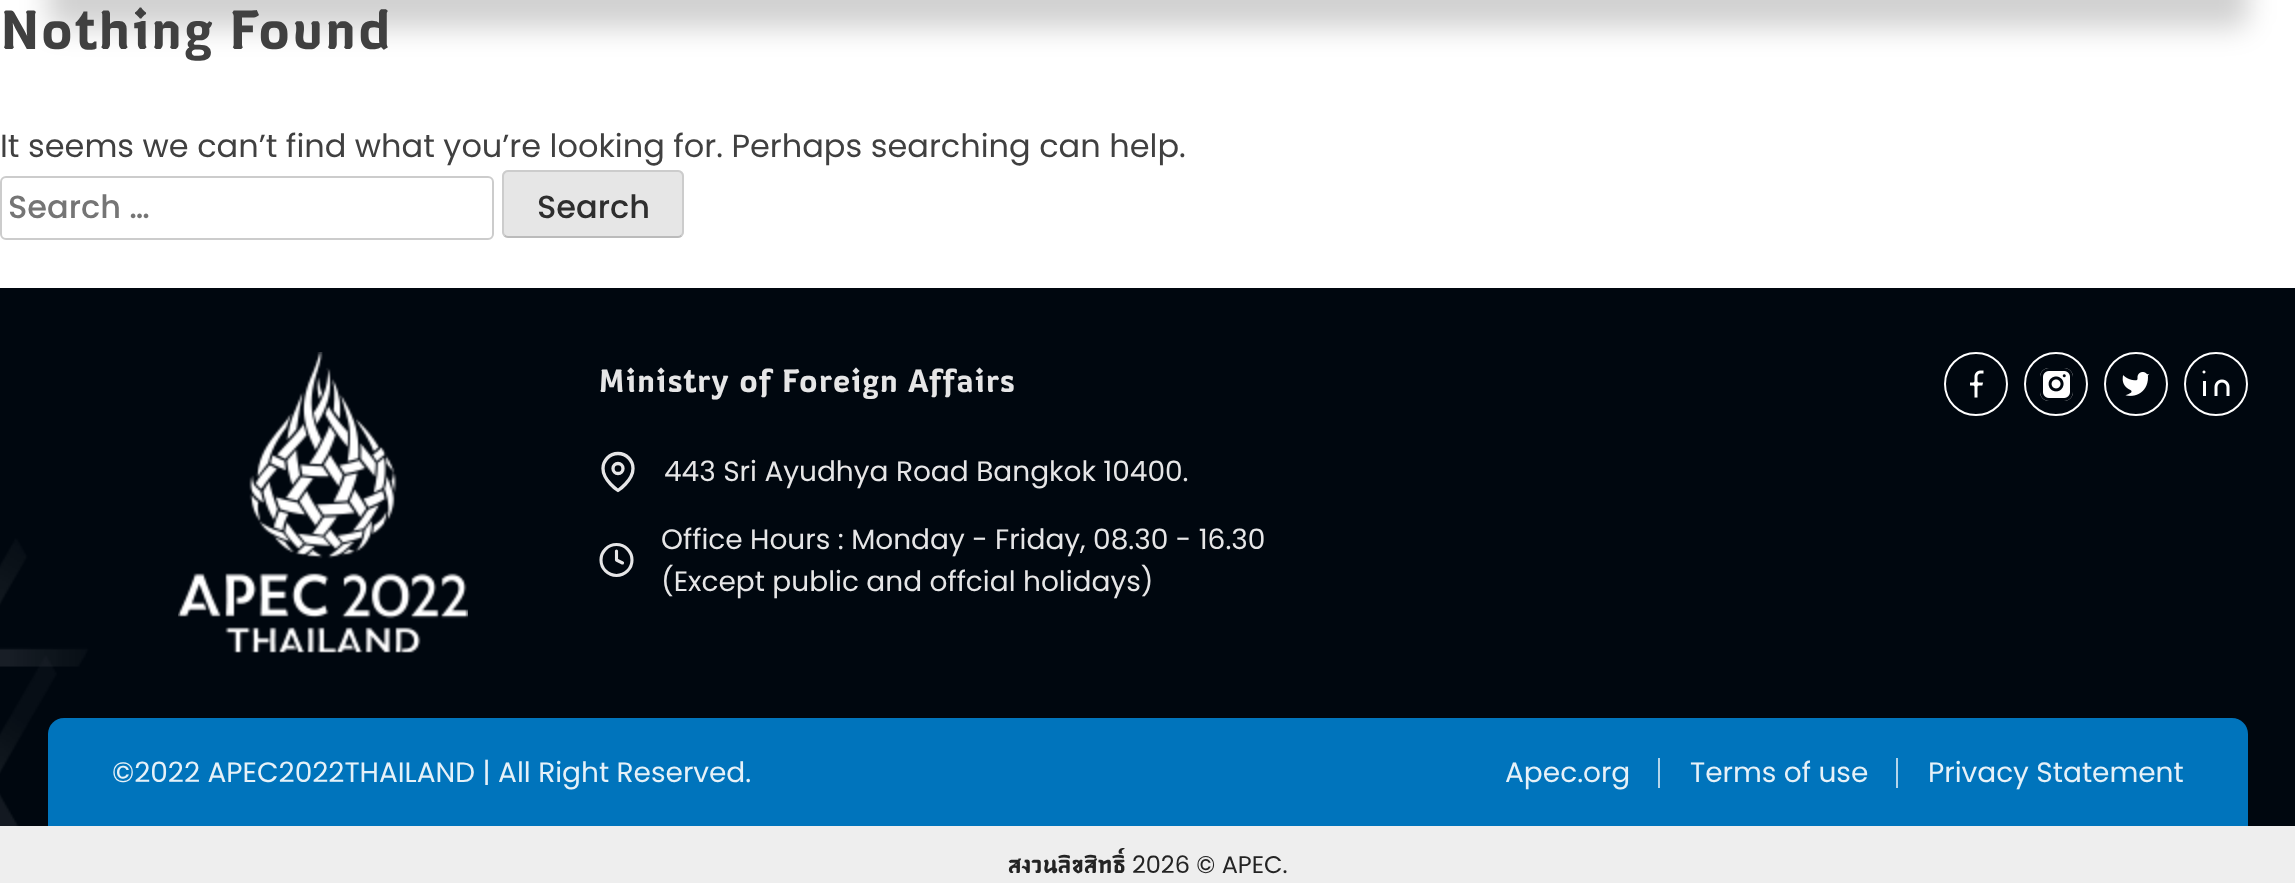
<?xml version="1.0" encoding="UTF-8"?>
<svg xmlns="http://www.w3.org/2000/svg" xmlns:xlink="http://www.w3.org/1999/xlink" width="2295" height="883">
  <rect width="100%" height="100%" fill="#ffffff" />
  <rect x="48" y="-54" width="2200" height="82" rx="12" fill="#000000" fill-opacity="0.18" filter="blur(14px)" />
  <rect x="1" y="177" width="492" height="62" rx="5" fill="none" stroke="#cccccc" stroke-width="2" />
  <rect x="502" y="170" width="182" height="68" rx="6" fill="#e6e6e6" />
  <path d="M 681.5 235.5 c -1 1 -2 1.5 -3.5 1.5 h -170 c -1.5 0 -2.5 -0.5 -3.5 -1.5" fill="none" stroke="#bbbbbb" stroke-width="2" />
  <path d="M 504.5 235.5 c -1 -1 -1.5 -2 -1.5 -3.5 v -56 c 0 -1.5 0.5 -2.5 1.5 -3.5 c 1 -1 2 -1.5 3.5 -1.5 h 170 c 1.5 0 2.5 0.5 3.5 1.5 c 1 1 1.5 2 1.5 3.5 v 56 c 0 1.5 -0.5 2.5 -1.5 3.5" fill="none" stroke="#cccccc" stroke-width="2" />
  <image x="0" y="288" width="2295" height="538" xlink:href="image1.png" />
  <image x="178" y="352" width="290" height="301" xlink:href="image2.png" />
  <path d="M 633 468.5 c 0 12 -15 22 -15 22 c 0 0 -15 -10 -15 -22 c 0 -8 6.5 -15 15 -15 c 8.5 0 15 7 15 15 z" fill="none" stroke="#e6e6e7" stroke-width="3.3" stroke-linecap="round" stroke-linejoin="round" />
  <circle cx="618" cy="468.5" r="5" fill="none" stroke="#e6e6e7" stroke-width="3.3" />
  <circle cx="616.5" cy="560" r="15.5" fill="none" stroke="#e6e6e7" stroke-width="3.1" />
  <path d="M 616.5 551 v 9 l 6 3" fill="none" stroke="#e6e6e7" stroke-width="3.1" stroke-linecap="round" stroke-linejoin="round" />
  <circle cx="1976" cy="384" r="31" fill="none" stroke="#ffffff" stroke-width="2" />
  <image x="1970" y="370" width="14" height="28" xlink:href="image3.png" />
  <circle cx="2056" cy="384" r="31" fill="none" stroke="#ffffff" stroke-width="2" />
  <image x="2040" y="368" width="33" height="33" xlink:href="image4.png" />
  <circle cx="2136" cy="384" r="31" fill="none" stroke="#ffffff" stroke-width="2" />
  <image x="2122" y="372" width="28" height="24" xlink:href="image5.png" />
  <circle cx="2216" cy="384" r="31" fill="none" stroke="#ffffff" stroke-width="2" />
  <image x="2202" y="370" width="28" height="26" xlink:href="image6.png" />
  <path d="M 64 718 h 2168 c 9 0 16 7 16 16 v 92 h -2200 v -92 c 0 -9 7 -16 16 -16 z" fill="#0074bc" />
  <rect x="1658" y="758" width="2" height="30" fill="#b3d5eb" />
  <rect x="1896" y="758" width="2" height="30" fill="#b3d5eb" />
  <rect y="826" width="2295" height="57" fill="#eeeeee" />
  <text x="0" y="49" style="font-family: 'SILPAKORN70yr'; font-size: 64px; fill: #404040">Nothing Found</text>
  <text x="0" y="157" style="font-family: Poppins; font-size: 32px; fill: #404040">It seems we can’t find what you’re looking for. Perhaps searching can help.</text>
  <text x="8" y="218" style="font-family: Poppins; font-size: 32px; font-weight: 500; fill: #757575">Search …</text>
  <text x="537" y="218" style="font-family: Poppins; font-size: 32px; font-weight: 500; fill: #2e2e2e">Search</text>
  <text x="598" y="392" style="font-family: 'SILPAKORN70yr'; font-size: 37.5px; fill: #e6e6e7">Ministry of Foreign Affairs</text>
  <text x="664" y="481" style="font-family: Poppins; font-size: 28px; fill: #e6e6e7">443 Sri Ayudhya Road Bangkok 10400.</text>
  <text x="661" y="549" style="font-family: Poppins; font-size: 28px; fill: #e6e6e7">Office Hours : Monday - Friday, 08.30 - 16.30</text>
  <text x="661" y="591" style="font-family: Poppins; font-size: 28px; fill: #e6e6e7">(Except public and offcial holidays)</text>
  <text x="112" y="782" style="font-family: Poppins; font-size: 28px; fill: #e6f1f8">©2022 APEC2022THAILAND | All Right Reserved.</text>
  <text x="1505" y="782" style="font-family: Poppins; font-size: 28px; fill: #e6f1f8">Apec.org</text>
  <text x="1690" y="782" style="font-family: Poppins; font-size: 28px; fill: #e6f1f8">Terms of use</text>
  <text x="1928" y="782" style="font-family: Poppins; font-size: 28px; fill: #e6f1f8">Privacy Statement</text>
  <text x="1008" y="873" style="font-family: 'SILPAKORN70yr'; font-size: 24px; fill: #242424">สงวนลิขสิทธิ์</text>
  <text x="1132" y="873" style="font-family: Poppins; font-size: 24px; fill: #242424">2026 © APEC.</text>
</svg>
